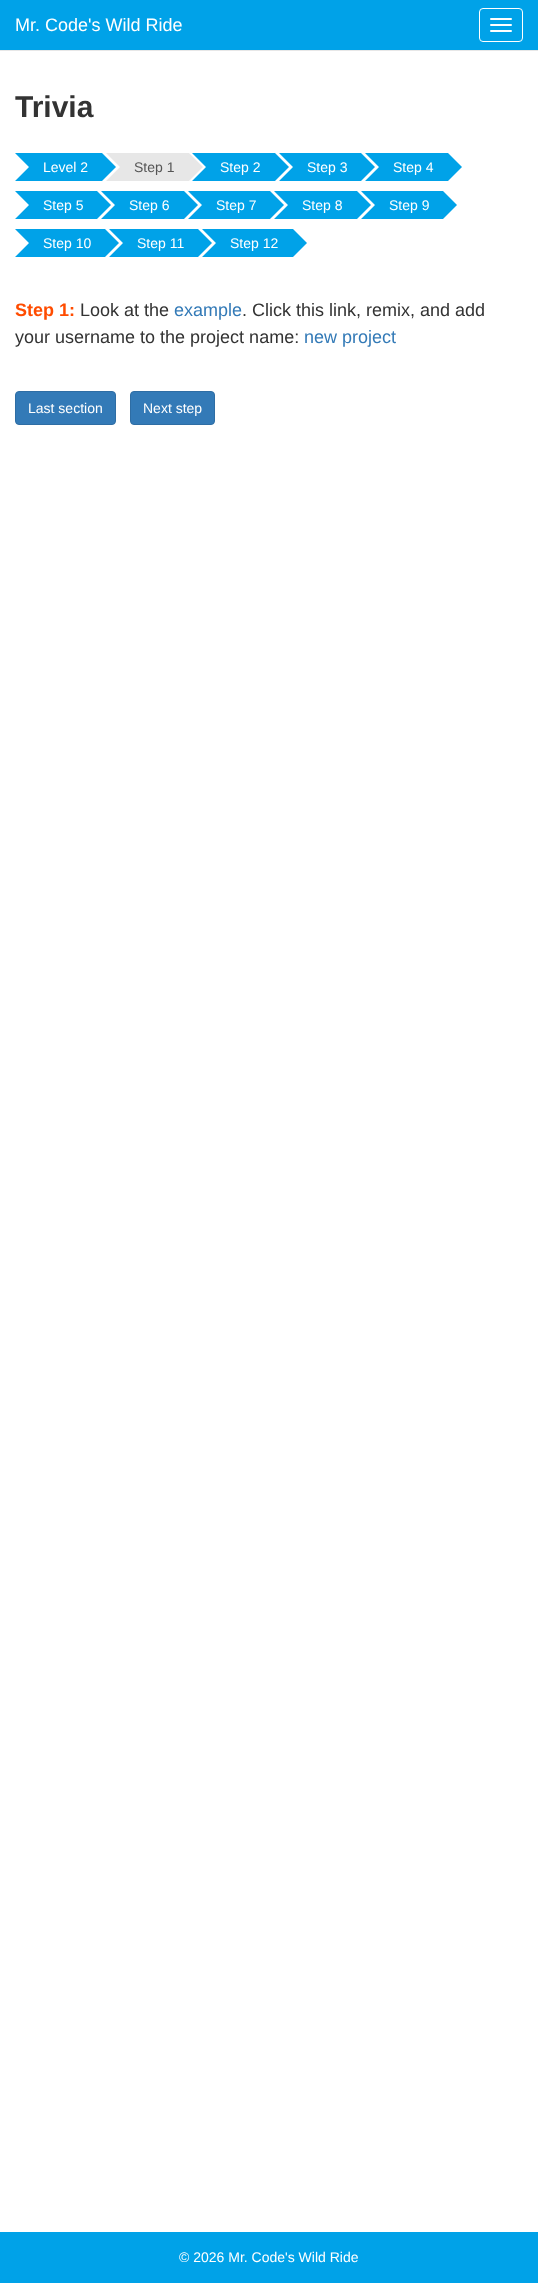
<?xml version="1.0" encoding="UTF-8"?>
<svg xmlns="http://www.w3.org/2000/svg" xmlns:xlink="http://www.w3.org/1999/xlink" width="538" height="2283">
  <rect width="100%" height="100%" fill="#ffffff" />
  <rect width="538" height="50" fill="#00a2e8" />
  <rect y="50" width="538" height="1" fill="#e7e7e7" />
  <rect x="479.5" y="8.5" width="43" height="33" rx="3.5" fill="none" stroke="#ffffff" />
  <rect x="490" y="18" width="22" height="2" rx="1" fill="#ffffff" />
  <rect x="490" y="24" width="22" height="2" rx="1" fill="#ffffff" />
  <rect x="490" y="30" width="22" height="2" rx="1" fill="#ffffff" />
  <rect x="29" y="153" width="73" height="28" fill="#00a2e8" />
  <path d="M 15 153 h 28 l -14 14 z m 28 28 h -28 l 14 -14 z" fill="#00a2e8" />
  <path d="M 102 181 v -28 l 14 14 z" fill="#00a2e8" />
  <rect x="120" y="153" width="69" height="28" fill="#e7e7e7" />
  <path d="M 106 153 h 28 l -14 14 z m 28 28 h -28 l 14 -14 z" fill="#e7e7e7" />
  <path d="M 189 181 v -28 l 14 14 z" fill="#e7e7e7" />
  <rect x="206" y="153" width="69" height="28" fill="#00a2e8" />
  <path d="M 192 153 h 28 l -14 14 z m 28 28 h -28 l 14 -14 z" fill="#00a2e8" />
  <path d="M 275 181 v -28 l 14 14 z" fill="#00a2e8" />
  <rect x="293" y="153" width="68" height="28" fill="#00a2e8" />
  <path d="M 279 153 h 28 l -14 14 z m 28 28 h -28 l 14 -14 z" fill="#00a2e8" />
  <path d="M 361 181 v -28 l 14 14 z" fill="#00a2e8" />
  <rect x="379" y="153" width="69" height="28" fill="#00a2e8" />
  <path d="M 365 153 h 28 l -14 14 z m 28 28 h -28 l 14 -14 z" fill="#00a2e8" />
  <path d="M 448 181 v -28 l 14 14 z" fill="#00a2e8" />
  <rect x="29" y="191" width="68" height="28" fill="#00a2e8" />
  <path d="M 15 191 h 28 l -14 14 z m 28 28 h -28 l 14 -14 z" fill="#00a2e8" />
  <path d="M 97 219 v -28 l 14 14 z" fill="#00a2e8" />
  <rect x="115" y="191" width="69" height="28" fill="#00a2e8" />
  <path d="M 101 191 h 28 l -14 14 z m 28 28 h -28 l 14 -14 z" fill="#00a2e8" />
  <path d="M 184 219 v -28 l 14 14 z" fill="#00a2e8" />
  <rect x="202" y="191" width="68" height="28" fill="#00a2e8" />
  <path d="M 188 191 h 28 l -14 14 z m 28 28 h -28 l 14 -14 z" fill="#00a2e8" />
  <path d="M 270 219 v -28 l 14 14 z" fill="#00a2e8" />
  <rect x="288" y="191" width="69" height="28" fill="#00a2e8" />
  <path d="M 274 191 h 28 l -14 14 z m 28 28 h -28 l 14 -14 z" fill="#00a2e8" />
  <path d="M 357 219 v -28 l 14 14 z" fill="#00a2e8" />
  <rect x="375" y="191" width="68" height="28" fill="#00a2e8" />
  <path d="M 361 191 h 28 l -14 14 z m 28 28 h -28 l 14 -14 z" fill="#00a2e8" />
  <path d="M 443 219 v -28 l 14 14 z" fill="#00a2e8" />
  <rect x="29" y="229" width="76" height="28" fill="#00a2e8" />
  <path d="M 15 229 h 28 l -14 14 z m 28 28 h -28 l 14 -14 z" fill="#00a2e8" />
  <path d="M 105 257 v -28 l 14 14 z" fill="#00a2e8" />
  <rect x="123" y="229" width="75" height="28" fill="#00a2e8" />
  <path d="M 109 229 h 28 l -14 14 z m 28 28 h -28 l 14 -14 z" fill="#00a2e8" />
  <path d="M 198 257 v -28 l 14 14 z" fill="#00a2e8" />
  <rect x="216" y="229" width="77" height="28" fill="#00a2e8" />
  <path d="M 202 229 h 28 l -14 14 z m 28 28 h -28 l 14 -14 z" fill="#00a2e8" />
  <path d="M 293 257 v -28 l 14 14 z" fill="#00a2e8" />
  <rect x="15.5" y="391.5" width="100" height="33" rx="3.5" fill="#337ab7" stroke="#2e6da4" />
  <rect x="130.5" y="391.5" width="84" height="33" rx="3.5" fill="#337ab7" stroke="#2e6da4" />
  <rect y="2232" width="538" height="51" fill="#00a2e8" />
  <text x="15" y="31" style="font-family: Liberation Sans; font-size: 18px; fill: #ffffff">Mr. Code's Wild Ride</text>
  <text x="15" y="117" style="font-family: Liberation Sans; font-size: 30px; font-weight: bold; fill: #333333">Trivia</text>
  <text x="43" y="172" style="font-family: Liberation Sans; font-size: 14px; fill: #ffffff">Level 2</text>
  <text x="134" y="172" style="font-family: Liberation Sans; font-size: 14px; fill: #555555">Step 1</text>
  <text x="220" y="172" style="font-family: Liberation Sans; font-size: 14px; fill: #ffffff">Step 2</text>
  <text x="307" y="172" style="font-family: Liberation Sans; font-size: 14px; fill: #ffffff">Step 3</text>
  <text x="393" y="172" style="font-family: Liberation Sans; font-size: 14px; fill: #ffffff">Step 4</text>
  <text x="43" y="210" style="font-family: Liberation Sans; font-size: 14px; fill: #ffffff">Step 5</text>
  <text x="129" y="210" style="font-family: Liberation Sans; font-size: 14px; fill: #ffffff">Step 6</text>
  <text x="216" y="210" style="font-family: Liberation Sans; font-size: 14px; fill: #ffffff">Step 7</text>
  <text x="302" y="210" style="font-family: Liberation Sans; font-size: 14px; fill: #ffffff">Step 8</text>
  <text x="389" y="210" style="font-family: Liberation Sans; font-size: 14px; fill: #ffffff">Step 9</text>
  <text x="43" y="248" style="font-family: Liberation Sans; font-size: 14px; fill: #ffffff">Step 10</text>
  <text x="137" y="248" style="font-family: Liberation Sans; font-size: 14px; fill: #ffffff">Step 11</text>
  <text x="230" y="248" style="font-family: Liberation Sans; font-size: 14px; fill: #ffffff">Step 12</text>
  <text x="15" y="316" style="font-family: Liberation Sans; font-size: 18px; font-weight: bold; fill: #ff4c00">Step 1:</text>
  <text x="80" y="316" style="font-family: Liberation Sans; font-size: 18px; fill: #333333">Look at the</text>
  <text x="174" y="316" style="font-family: Liberation Sans; font-size: 18px; fill: #337ab7">example</text>
  <text x="242" y="316" style="font-family: Liberation Sans; font-size: 18px; fill: #333333">. Click this link, remix, and add</text>
  <text x="15" y="343" style="font-family: Liberation Sans; font-size: 18px; fill: #333333">your username to the project name:</text>
  <text x="304" y="343" style="font-family: Liberation Sans; font-size: 18px; fill: #337ab7">new project</text>
  <text x="28" y="413" style="font-family: Liberation Sans; font-size: 14px; fill: #ffffff">Last section</text>
  <text x="143" y="413" style="font-family: Liberation Sans; font-size: 14px; fill: #ffffff">Next step</text>
  <text x="179" y="2262" style="font-family: Liberation Sans; font-size: 14px; fill: #ffffff">© 2026 Mr. Code's Wild Ride</text>
</svg>
